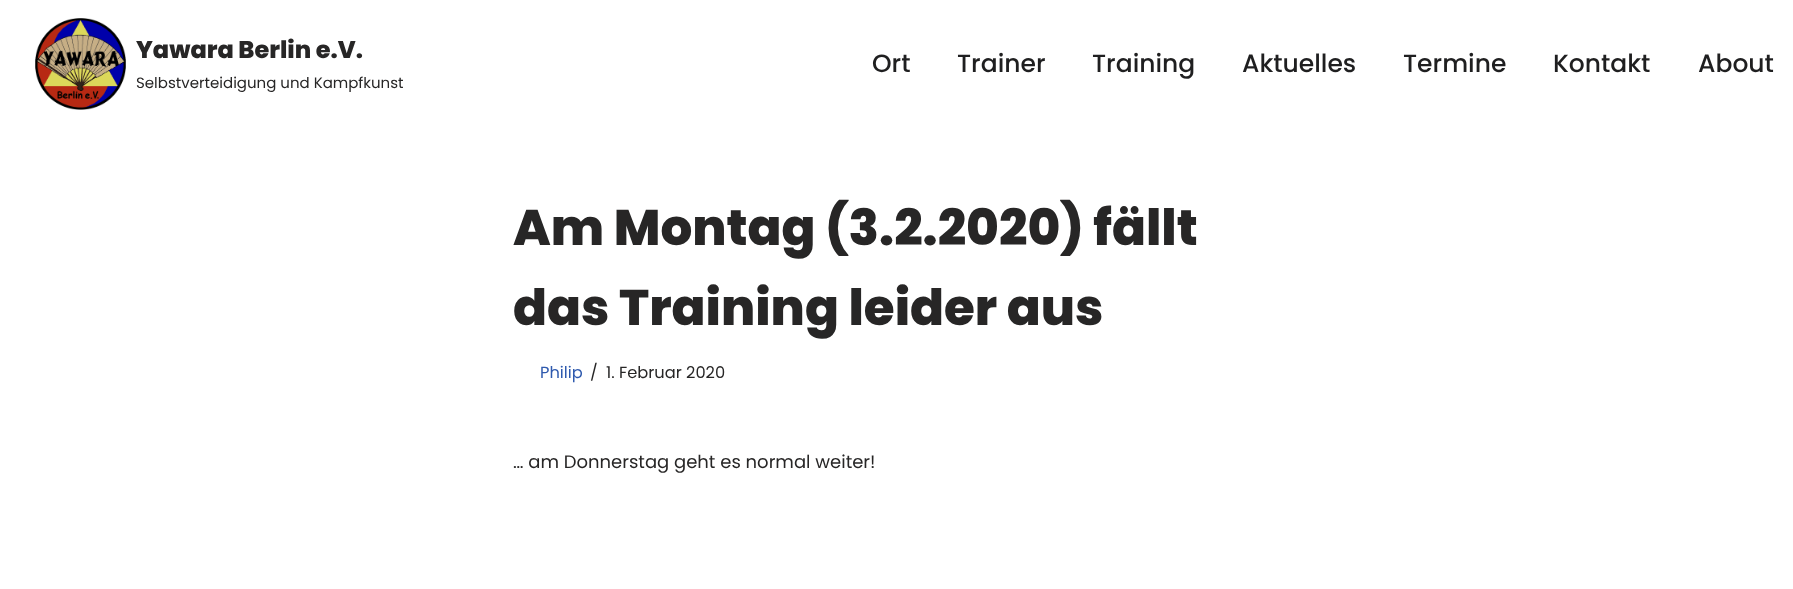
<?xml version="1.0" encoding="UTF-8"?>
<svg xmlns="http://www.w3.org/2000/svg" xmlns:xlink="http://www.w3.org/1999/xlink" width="1793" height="589">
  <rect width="100%" height="100%" fill="#ffffff" />
  <image x="35" y="18" width="91" height="92" xlink:href="image1.png" />
  <text x="136" y="58" style="font-family: Poppins; font-size: 24px; font-weight: 800; fill: #272626">Yawara Berlin e.V.</text>
  <text x="136" y="88" style="font-family: Poppins; font-size: 15px; fill: #272626">Selbstverteidigung und Kampfkunst</text>
  <text x="872" y="72" style="font-family: Poppins; font-size: 25px; font-weight: 500; fill: #1f1f20">Ort</text>
  <text x="957" y="72" style="font-family: Poppins; font-size: 25px; font-weight: 500; fill: #1f1f20">Trainer</text>
  <text x="1092" y="72" style="font-family: Poppins; font-size: 25px; font-weight: 500; fill: #1f1f20">Training</text>
  <text x="1242" y="72" style="font-family: Poppins; font-size: 25px; font-weight: 500; fill: #1f1f20">Aktuelles</text>
  <text x="1403" y="72" style="font-family: Poppins; font-size: 25px; font-weight: 500; fill: #1f1f20">Termine</text>
  <text x="1553" y="72" style="font-family: Poppins; font-size: 25px; font-weight: 500; fill: #1f1f20">Kontakt</text>
  <text x="1698" y="72" style="font-family: Poppins; font-size: 25px; font-weight: 500; fill: #1f1f20">About</text>
  <text x="513" y="245" style="font-family: Poppins; font-size: 50px; font-weight: 800; fill: #272626">Am Montag (3.2.2020) fällt</text>
  <text x="513" y="325" style="font-family: Poppins; font-size: 50px; font-weight: 800; fill: #272626">das Training leider aus</text>
  <text x="540" y="378" style="font-family: Poppins; font-size: 16.25px; fill: #2f5aae">Philip</text>
  <text x="590" y="378" style="font-family: Poppins; font-size: 16.25px; fill: #272626">/</text>
  <text x="606" y="378" style="font-family: Poppins; font-size: 16.25px; fill: #272626">1. Februar 2020</text>
  <text x="513" y="468" style="font-family: Poppins; font-size: 18px; fill: #272626">… am Donnerstag geht es normal weiter!</text>
</svg>
